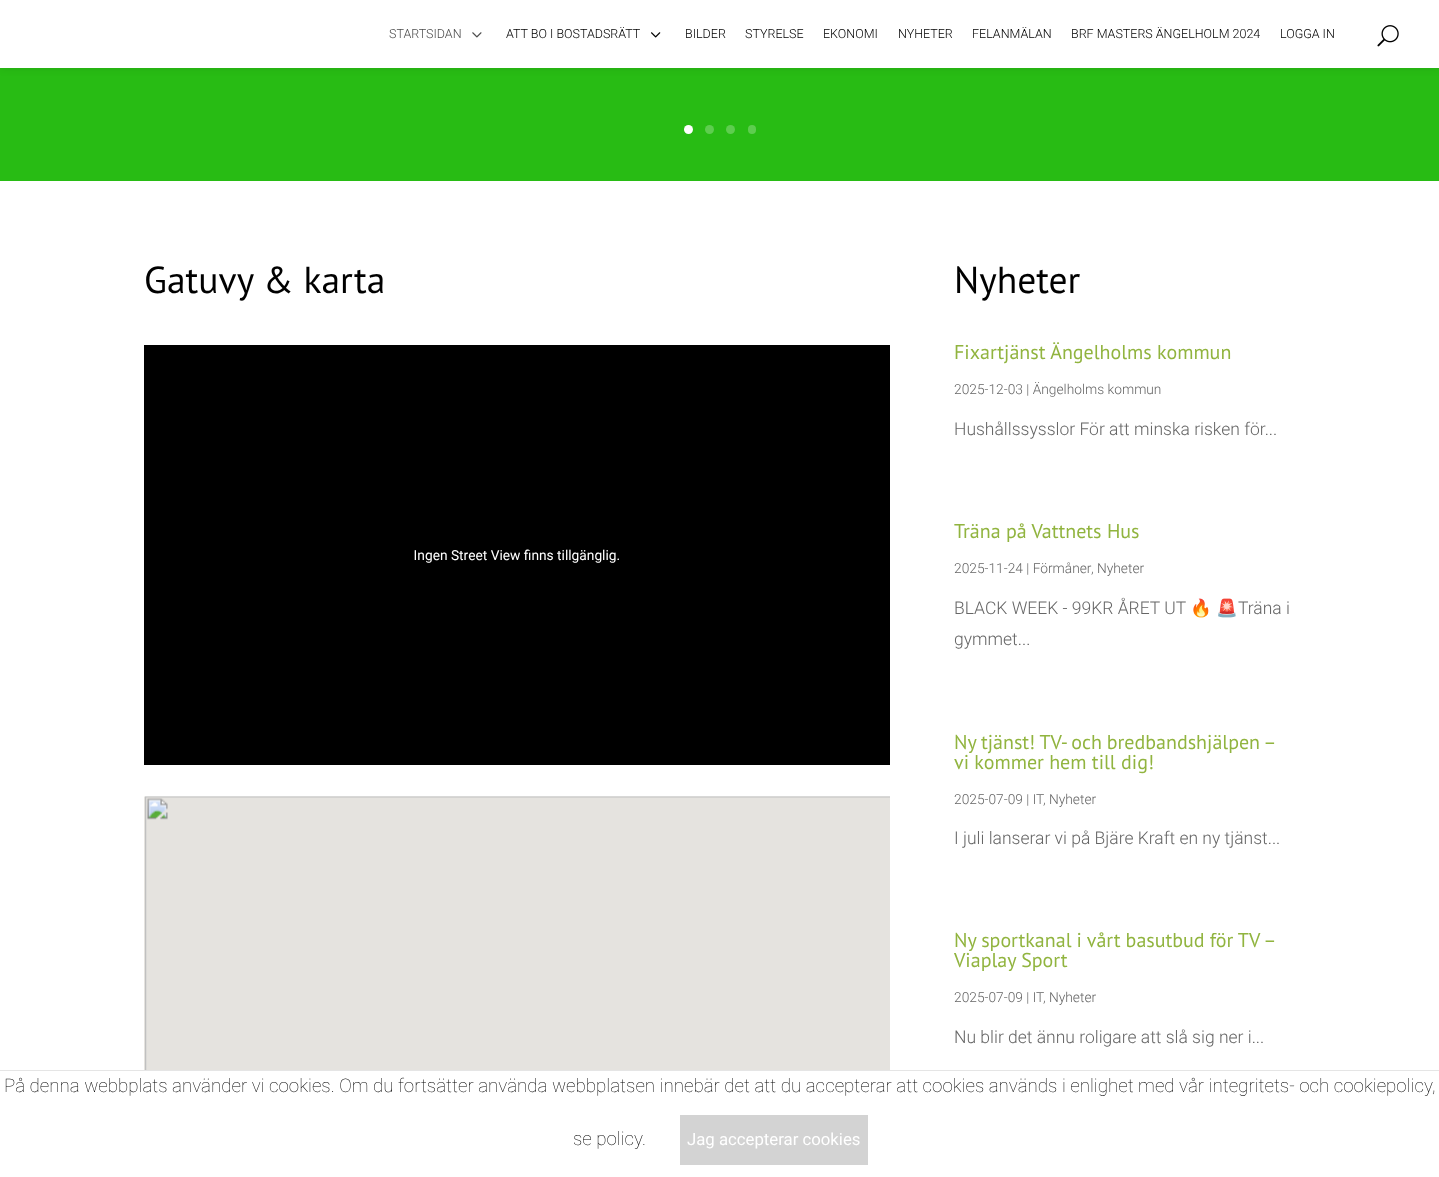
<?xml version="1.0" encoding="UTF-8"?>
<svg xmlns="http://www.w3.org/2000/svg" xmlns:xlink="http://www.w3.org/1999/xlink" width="1439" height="1177">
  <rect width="100%" height="100%" fill="#ffffff" />
  <rect y="68" width="1439" height="113" fill="#28bc14" />
  <rect width="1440" height="68" fill="#000000" fill-opacity="0.1" filter="blur(4.5px)" />
  <rect width="1439" height="68" fill="#ffffff" />
  <image x="472" y="32" width="10" height="6" xlink:href="image1.png" />
  <image x="651" y="32" width="10" height="6" xlink:href="image2.png" />
  <image x="1377" y="25" width="22" height="22" xlink:href="image3.png" />
  <circle cx="688.5" cy="129.5" r="4.5" fill="#ffffff" />
  <circle cx="709.5" cy="129.5" r="4.5" fill="#5ecd4f" />
  <circle cx="730.5" cy="129.5" r="4.5" fill="#5ecd4f" />
  <rect x="748" y="125" width="8" height="9" rx="4" fill="#5ecd4f" />
  <image x="144" y="345" width="746" height="420" xlink:href="image4.png" />
  <image x="144" y="796" width="746" height="274" xlink:href="image5.png" />
  <rect y="1070" width="1439" height="1" fill="#e5e5e5" />
  <rect x="680" y="1115" width="188" height="50" fill="#d3d3d3" />
  <text x="389" y="38" style="font-family: Roboto; font-size: 12.5px; font-weight: 300; fill: #4d4d4d">STARTSIDAN</text>
  <text x="506" y="38" style="font-family: Roboto; font-size: 12.5px; font-weight: 300; fill: #000000">ATT BO I BOSTADSRÄTT</text>
  <text x="685" y="38" style="font-family: Roboto; font-size: 12.5px; font-weight: 300; fill: #000000">BILDER</text>
  <text x="745" y="38" style="font-family: Roboto; font-size: 12.5px; font-weight: 300; fill: #000000">STYRELSE</text>
  <text x="823" y="38" style="font-family: Roboto; font-size: 12.5px; font-weight: 300; fill: #000000">EKONOMI</text>
  <text x="898" y="38" style="font-family: Roboto; font-size: 12.5px; font-weight: 300; fill: #000000">NYHETER</text>
  <text x="972" y="38" style="font-family: Roboto; font-size: 12.5px; font-weight: 300; fill: #000000">FELANMÄLAN</text>
  <text x="1071" y="38" style="font-family: Roboto; font-size: 12.5px; font-weight: 300; fill: #000000">BRF MASTERS ÄNGELHOLM 2024</text>
  <text x="1280" y="38" style="font-family: Roboto; font-size: 12.5px; font-weight: 300; fill: #000000">LOGGA IN</text>
  <text x="144" y="293" style="font-family: PT Sans; font-size: 37.5px; fill: #000000">Gatuvy &amp; karta</text>
  <text x="954" y="293" style="font-family: PT Sans; font-size: 37.5px; fill: #000000">Nyheter</text>
  <text x="954" y="359" style="font-family: PT Sans; font-size: 20px; fill: #91b43f">Fixartjänst Ängelholms kommun</text>
  <text x="954" y="394" style="font-family: Roboto; font-size: 13.75px; font-weight: 300; fill: #666666">2025-12-03 | Ängelholms kommun</text>
  <text x="954" y="435" style="font-family: Roboto; font-size: 17.5px; font-weight: 300; fill: #666666">Hushållssysslor För att minska risken för...</text>
  <text x="954" y="538" style="font-family: PT Sans; font-size: 20px; fill: #91b43f">Träna på Vattnets Hus</text>
  <text x="954" y="573" style="font-family: Roboto; font-size: 13.75px; font-weight: 300; fill: #666666">2025-11-24 | Förmåner</text>
  <text x="1091" y="573" style="font-family: Roboto; font-size: 13.75px; font-weight: 300; fill: #666666">, Nyheter</text>
  <text x="954" y="614" style="font-family: Roboto; font-size: 17.5px; font-weight: 300; fill: #666666">BLACK WEEK - 99KR ÅRET UT</text>
  <text x="1190" y="614" style="font-family: Noto Color Emoji; font-size: 17.5px; fill: #666666">🔥</text>
  <text x="1216" y="614" style="font-family: Noto Color Emoji; font-size: 17.5px; fill: #666666">🚨</text>
  <text x="1238" y="614" style="font-family: Roboto; font-size: 17.5px; font-weight: 300; fill: #666666">Träna i</text>
  <text x="954" y="645" style="font-family: Roboto; font-size: 17.5px; font-weight: 300; fill: #666666">gymmet...</text>
  <text x="954" y="749" word-spacing="-0.5" style="font-family: PT Sans; font-size: 20px; fill: #91b43f">Ny tjänst! TV- och bredbandshjälpen –</text>
  <text x="954" y="769" style="font-family: PT Sans; font-size: 20px; fill: #91b43f">vi kommer hem till dig!</text>
  <text x="954" y="804" style="font-family: Roboto; font-size: 13.75px; font-weight: 300; fill: #666666">2025-07-09 | IT</text>
  <text x="1043" y="804" style="font-family: Roboto; font-size: 13.75px; font-weight: 300; fill: #666666">, Nyheter</text>
  <text x="954" y="844" style="font-family: Roboto; font-size: 17.5px; font-weight: 300; fill: #666666">I juli lanserar vi på Bjäre Kraft en ny tjänst...</text>
  <text x="954" y="947" word-spacing="-0.25" style="font-family: PT Sans; font-size: 20px; fill: #91b43f">Ny sportkanal i vårt basutbud för TV –</text>
  <text x="954" y="967" style="font-family: PT Sans; font-size: 20px; fill: #91b43f">Viaplay Sport</text>
  <text x="954" y="1002" style="font-family: Roboto; font-size: 13.75px; font-weight: 300; fill: #666666">2025-07-09 | IT</text>
  <text x="1043" y="1002" style="font-family: Roboto; font-size: 13.75px; font-weight: 300; fill: #666666">, Nyheter</text>
  <text x="954" y="1043" style="font-family: Roboto; font-size: 17.5px; font-weight: 300; fill: #666666">Nu blir det ännu roligare att slå sig ner i...</text>
  <text x="4" y="1092" style="font-family: Roboto; font-size: 18.75px; font-weight: 100; fill: #000000">På denna webbplats använder vi cookies. Om du fortsätter använda webbplatsen innebär det att du accepterar att cookies används i enlighet med vår integritets- och cookiepolicy,</text>
  <text x="573" y="1145" style="font-family: Roboto; font-size: 18.75px; font-weight: 100; fill: #000000">se policy</text>
  <text x="642" y="1145" style="font-family: Roboto; font-size: 18.75px; font-weight: 100; fill: #000000">.</text>
  <text x="687" y="1145" style="font-family: Roboto; font-size: 16.75px; fill: #ffffff">Jag accepterar cookies</text>
</svg>
